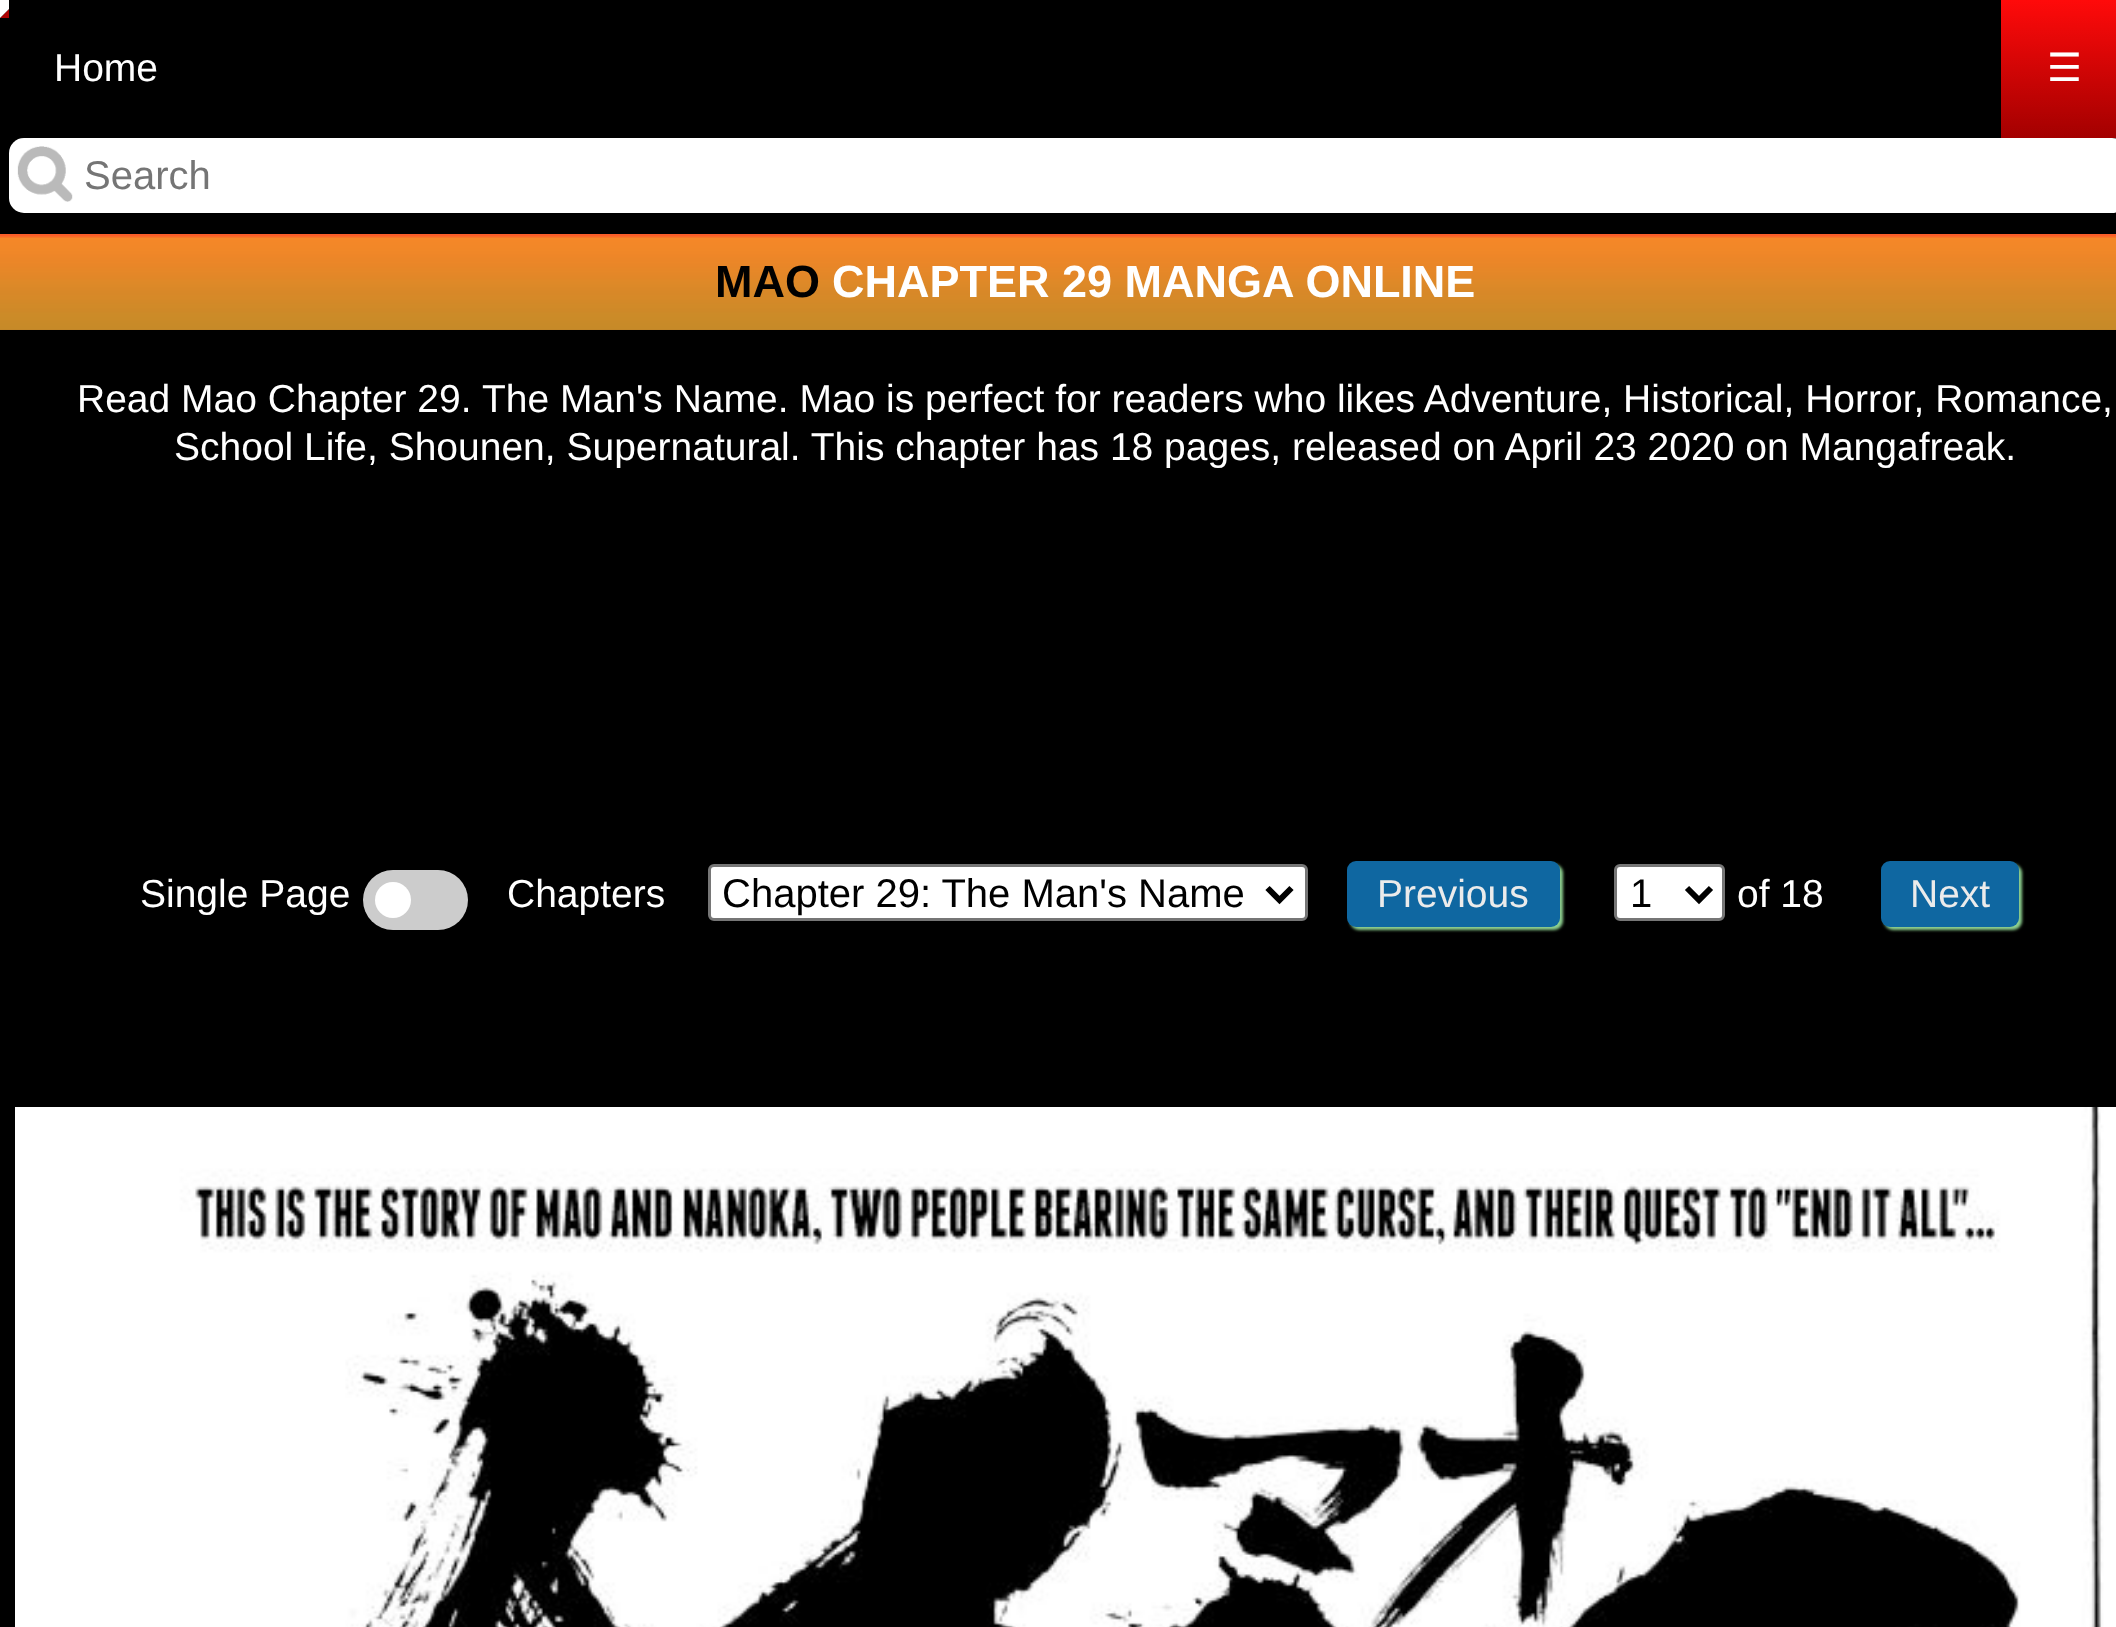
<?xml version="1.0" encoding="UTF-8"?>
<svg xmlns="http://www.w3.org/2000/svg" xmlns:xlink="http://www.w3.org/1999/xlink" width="2116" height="1627">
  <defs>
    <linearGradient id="g1" gradientUnits="userSpaceOnUse" x1="2064" y1="0" x2="2064" y2="138"><stop offset="0" stop-color="#ff0a0a" /><stop offset="1" stop-color="#a30000" /></linearGradient>
  </defs>
  <rect width="100%" height="100%" fill="#000000" />
  <rect width="9" height="9" fill="#ffffff" />
  <path d="M 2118 18 h -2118 l 9 -9 h 2100 z" fill="#aa0000" />
  <path d="M 0 18 v -18 l 9 9 z" fill="#ffffff" />
  <rect x="9" y="9" width="2107" height="9" fill="#000000" />
  <rect x="2001" width="115" height="138" fill="url(#g1)" />
  <rect x="9" y="138" width="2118" height="75" rx="15" fill="#ffffff" />
  <image x="17" y="146" width="56" height="56" xlink:href="image1.png" />
  <image x="0" y="234" width="2116" height="96" xlink:href="image2.png" />
  <rect x="363" y="870" width="105" height="60" rx="30" fill="#cccccc" />
  <circle cx="393" cy="900" r="18" fill="#ffffff" />
  <rect x="709.5" y="865.5" width="597" height="54" rx="4.5" fill="#ffffff" stroke="#767676" stroke-width="3" />
  <path d="M 1267.5 888 l 12 12 l 12 -12" fill="none" stroke="#000000" stroke-width="6" />
  <rect x="1350" y="864" width="213" height="66" rx="9" fill="#8dd08f" filter="blur(1.5px)" />
  <rect x="1347" y="861" width="213" height="66" rx="9" fill="#0f67a1" />
  <rect x="1615.5" y="865.5" width="108" height="54" rx="4.5" fill="#ffffff" stroke="#767676" stroke-width="3" />
  <path d="M 1687 888 l 12 12 l 12 -12" fill="none" stroke="#000000" stroke-width="6" />
  <rect x="1884" y="864" width="138" height="66" rx="9" fill="#8dd08f" filter="blur(1.5px)" />
  <rect x="1881" y="861" width="138" height="66" rx="9" fill="#0f67a1" />
  <image x="15" y="1107" width="2101" height="520" xlink:href="image3.png" />
  <text x="54" y="81" style="font-family: Liberation Sans; font-size: 39px; fill: #ffffff">Home</text>
  <text x="2047" y="81" style="font-family: DejaVu Sans; font-size: 39px; fill: #ffffff">☰</text>
  <text x="84" y="189" style="font-family: Liberation Sans; font-size: 40px; fill: #757575">Search</text>
  <text x="715" y="297" style="font-family: Liberation Sans; font-size: 45px; font-weight: bold; fill: #000000">MAO</text>
  <text x="832" y="297" style="font-family: Liberation Sans; font-size: 45px; font-weight: bold; fill: #ffffff">CHAPTER 29 MANGA ONLINE</text>
  <text x="77" y="412" style="font-family: Liberation Sans; font-size: 39px; fill: #ffffff">Read Mao Chapter 29.</text>
  <text x="482" y="412" style="font-family: Liberation Sans; font-size: 39px; fill: #ffffff">The Man's Name. Mao is perfect for readers who likes Adventure, Historical, Horror, Romance,</text>
  <text x="174" y="460" style="font-family: Liberation Sans; font-size: 39px; fill: #ffffff">School Life, Shounen, Supernatural. This chapter has 18 pages, released on April 23 2020 on Mangafreak.</text>
  <text x="140" y="907" style="font-family: Liberation Sans; font-size: 39px; fill: #ffffff">Single Page</text>
  <text x="507" y="907" style="font-family: Liberation Sans; font-size: 39px; fill: #ffffff">Chapters</text>
  <text x="722" y="907" style="font-family: Liberation Sans; font-size: 40px; fill: #000000">Chapter 29: The Man's Name</text>
  <text x="1377" y="907" style="font-family: Liberation Sans; font-size: 39px; fill: #ebebeb">Previous</text>
  <text x="1630" y="907" style="font-family: Liberation Sans; font-size: 40px; fill: #000000">1</text>
  <text x="1737" y="907" style="font-family: Liberation Sans; font-size: 39px; fill: #ffffff">of 18</text>
  <text x="1910" y="907" style="font-family: Liberation Sans; font-size: 39px; fill: #ebebeb">Next</text>
</svg>
